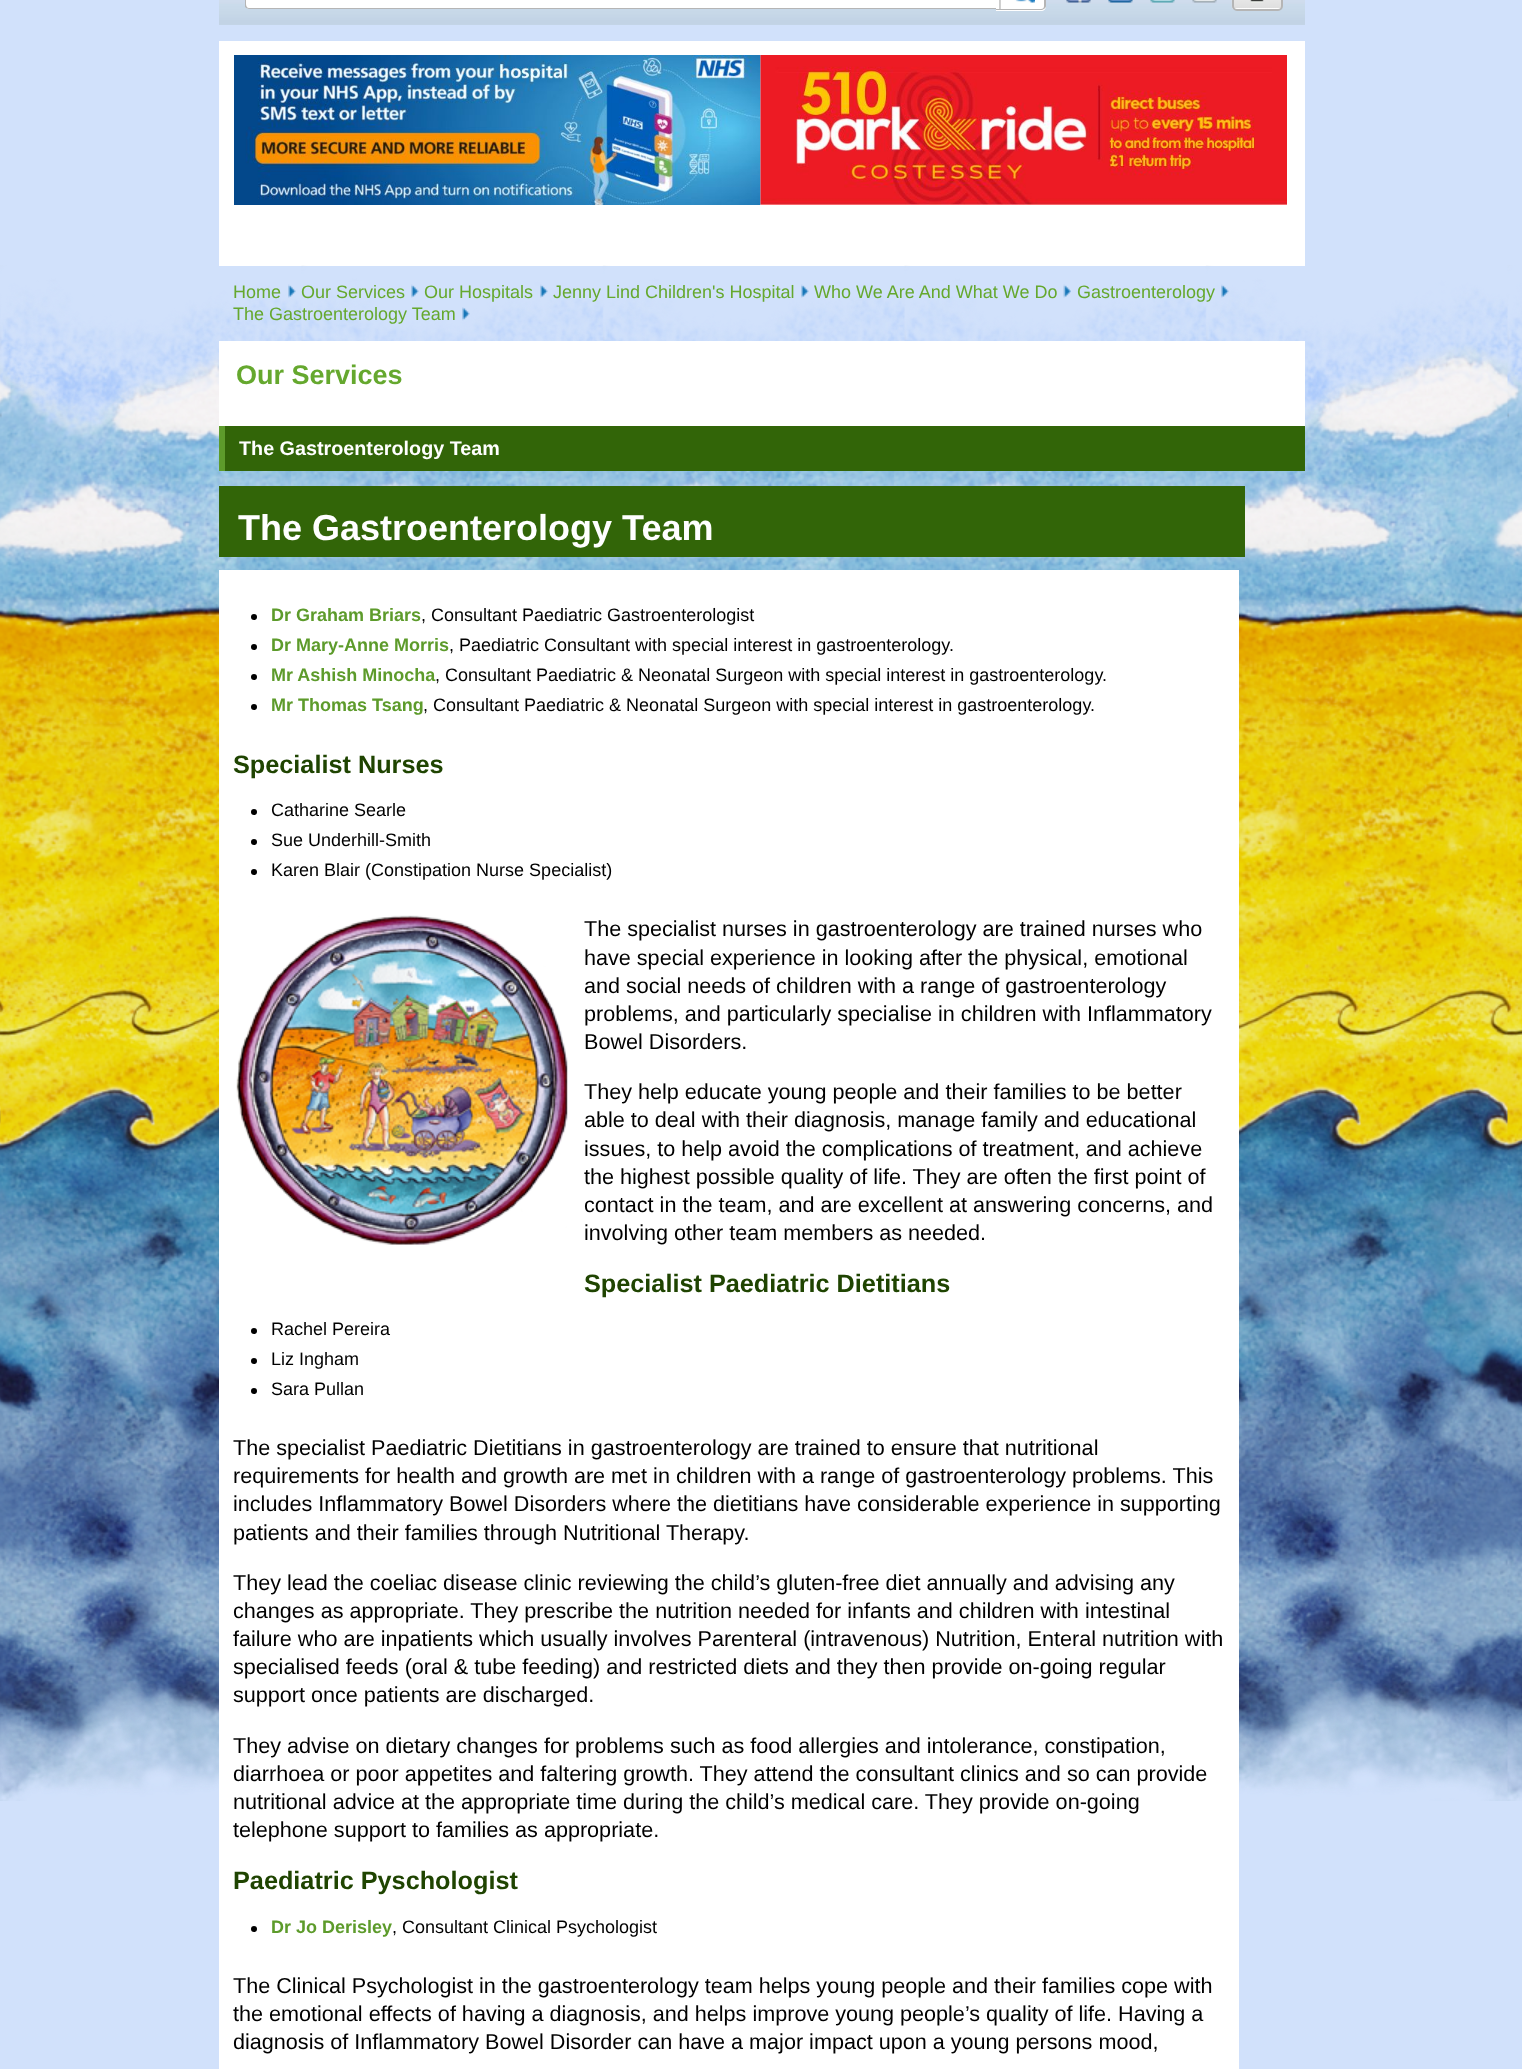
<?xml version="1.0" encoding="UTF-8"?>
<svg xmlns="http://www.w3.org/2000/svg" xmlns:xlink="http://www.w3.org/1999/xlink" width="1522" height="2069">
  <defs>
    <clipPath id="clip1"><rect x="245" width="753" height="9" /></clipPath>
  </defs>
  <rect width="100%" height="100%" fill="#d1e1fb" />
  <image x="219" y="0" width="1086" height="25" xlink:href="image1.png" />
  <path d="M 250 -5 h 748 v 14 h -748 c -3 0 -5 -2 -5 -5 v -4 c 0 -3 2 -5 5 -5 z" fill="#ffffff" />
  <g clip-path="url(#clip1)">
    <path d="M 249 -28 h 762 v 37 h -762 c -2 0 -5 -2 -5 -5 v -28 c 0 -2 3 -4 5 -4 z m 0 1 h 762 v 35 h -762 c -2 0 -3 -2 -3 -4 v -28 c 0 -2 1 -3 3 -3 z" fill="#b5b5b5" fill-rule="evenodd" />
  </g>
  <path d="M 996 -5 h 45 c 3 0 5 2 5 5 v 6 c 0 3 -2 5 -5 5 h -45 z" fill="#ffffff" />
  <image x="999" y="0" width="36" height="9" xlink:href="image2.png" />
  <path d="M 996 -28 h 45 c 2 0 5 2 5 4 v 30 c 0 2 -3 4 -5 4 h -45 z m 0 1 h 45 c 2 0 3 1 3 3 v 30 c 0 2 -1 3 -3 3 h -45 z" fill="#b5b5b5" fill-rule="evenodd" />
  <image x="1066" y="0" width="25" height="3" xlink:href="image3.png" />
  <image x="1108" y="0" width="25" height="3" xlink:href="image4.png" />
  <image x="1150" y="0" width="25" height="3" xlink:href="image5.png" />
  <image x="1192" y="0" width="25" height="3" xlink:href="image6.png" />
  <image x="1231" y="0" width="52" height="10" xlink:href="image7.png" />
  <rect x="1233" y="-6" width="49" height="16" rx="4" fill="none" stroke="#b5b5b5" stroke-width="2" />
  <image x="1250" y="0" width="14" height="3" xlink:href="image8.png" />
  <rect x="219" y="41" width="1086" height="225" fill="#ffffff" />
  <image x="234" y="55" width="527" height="150" xlink:href="image9.png" />
  <image x="760" y="55" width="527" height="150" xlink:href="image10.png" />
  <image x="0" y="265" width="1522" height="1536" xlink:href="image11.png" />
  <image x="288" y="284" width="8" height="14" xlink:href="image12.png" />
  <image x="411" y="284" width="8" height="14" xlink:href="image13.png" />
  <image x="540" y="284" width="8" height="14" xlink:href="image14.png" />
  <image x="801" y="284" width="8" height="14" xlink:href="image15.png" />
  <image x="1063" y="284" width="8" height="14" xlink:href="image16.png" />
  <image x="1221" y="284" width="8" height="14" xlink:href="image17.png" />
  <image x="462" y="307" width="8" height="14" xlink:href="image18.png" />
  <rect x="219" y="341" width="1086" height="85" fill="#ffffff" />
  <rect x="225" y="426" width="1080" height="45" fill="#326508" />
  <rect x="219" y="426" width="6" height="45" fill="#5d9b2b" />
  <rect x="219" y="486" width="1026" height="71" fill="#326508" />
  <rect x="219" y="570" width="1020" height="1499" fill="#ffffff" />
  <circle cx="254" cy="617" r="3" fill="#000000" />
  <circle cx="254" cy="647" r="3" fill="#000000" />
  <circle cx="254" cy="677" r="3" fill="#000000" />
  <circle cx="254" cy="707" r="3" fill="#000000" />
  <circle cx="254" cy="812" r="3" fill="#000000" />
  <circle cx="254" cy="842" r="3" fill="#000000" />
  <circle cx="254" cy="872" r="3" fill="#000000" />
  <image x="236" y="915" width="332" height="330" xlink:href="image19.png" />
  <circle cx="254" cy="1331" r="3" fill="#000000" />
  <circle cx="254" cy="1361" r="3" fill="#000000" />
  <circle cx="254" cy="1391" r="3" fill="#000000" />
  <circle cx="254" cy="1929" r="3" fill="#000000" />
  <text x="233" y="298" style="font-family: Liberation Sans; font-size: 18px; fill: #65a82e">Home</text>
  <text x="301" y="298" style="font-family: Liberation Sans; font-size: 18px; fill: #65a82e">Our Services</text>
  <text x="424" y="298" style="font-family: Liberation Sans; font-size: 18px; fill: #65a82e">Our Hospitals</text>
  <text x="553" y="298" style="font-family: Liberation Sans; font-size: 18px; fill: #65a82e">Jenny Lind Children's Hospital</text>
  <text x="814" y="298" style="font-family: Liberation Sans; font-size: 18px; fill: #65a82e">Who We Are And What We Do</text>
  <text x="1077" y="298" style="font-family: Liberation Sans; font-size: 18px; fill: #65a82e">Gastroenterology</text>
  <text x="233" y="320" style="font-family: Liberation Sans; font-size: 18px; fill: #65a82e">The Gastroenterology Team</text>
  <text x="236" y="384" style="font-family: Liberation Sans; font-size: 27px; font-weight: bold; fill: #65a82e">Our Services</text>
  <text x="239" y="455" style="font-family: Liberation Sans; font-size: 19.75px; font-weight: bold; fill: #ffffff">The Gastroenterology Team</text>
  <text x="238" y="540" style="font-family: Liberation Sans; font-size: 36px; font-weight: bold; fill: #ffffff">The Gastroenterology Team</text>
  <text x="271" y="621" style="font-family: Liberation Sans; font-size: 18px; font-weight: bold; fill: #5d9b2b">Dr Graham Briars</text>
  <text x="421" y="621" style="font-family: Liberation Sans; font-size: 18px; fill: #000000">, Consultant Paediatric Gastroenterologist</text>
  <text x="271" y="651" style="font-family: Liberation Sans; font-size: 18px; font-weight: bold; fill: #5d9b2b">Dr Mary-Anne Morris</text>
  <text x="449" y="651" style="font-family: Liberation Sans; font-size: 18px; fill: #000000">, Paediatric Consultant with special interest in gastroenterology.</text>
  <text x="271" y="681" style="font-family: Liberation Sans; font-size: 18px; font-weight: bold; fill: #5d9b2b">Mr Ashish Minocha</text>
  <text x="435" y="681" style="font-family: Liberation Sans; font-size: 18px; fill: #000000">, Consultant Paediatric &amp; Neonatal Surgeon with special interest in gastroenterology.</text>
  <text x="271" y="711" style="font-family: Liberation Sans; font-size: 18px; font-weight: bold; fill: #5d9b2b">Mr Thomas Tsang</text>
  <text x="423" y="711" style="font-family: Liberation Sans; font-size: 18px; fill: #000000">, Consultant Paediatric &amp; Neonatal Surgeon with special interest in gastroenterology.</text>
  <text x="233" y="773" style="font-family: Liberation Sans; font-size: 25.25px; font-weight: bold; fill: #1f4401">Specialist Nurses</text>
  <text x="271" y="816" style="font-family: Liberation Sans; font-size: 18px; fill: #000000">Catharine Searle</text>
  <text x="271" y="846" style="font-family: Liberation Sans; font-size: 18px; fill: #000000">Sue Underhill-Smith</text>
  <text x="271" y="876" style="font-family: Liberation Sans; font-size: 18px; fill: #000000">Karen Blair (Constipation Nurse Specialist)</text>
  <text x="584" y="936" style="font-family: Liberation Sans; font-size: 21.6px; fill: #000000">The specialist nurses in gastroenterology are trained nurses who</text>
  <text x="584" y="965" style="font-family: Liberation Sans; font-size: 21.6px; fill: #000000">have special experience in looking after the physical, emotional</text>
  <text x="584" y="993" style="font-family: Liberation Sans; font-size: 21.6px; fill: #000000">and social needs of children with a range of gastroenterology</text>
  <text x="584" y="1021" style="font-family: Liberation Sans; font-size: 21.6px; fill: #000000">problems, and particularly specialise in children with Inflammatory</text>
  <text x="584" y="1049" style="font-family: Liberation Sans; font-size: 21.6px; fill: #000000">Bowel Disorders.</text>
  <text x="584" y="1099" style="font-family: Liberation Sans; font-size: 21.6px; fill: #000000">They help educate young people and their families to be better</text>
  <text x="584" y="1127" style="font-family: Liberation Sans; font-size: 21.6px; fill: #000000">able to deal with their diagnosis, manage family and educational</text>
  <text x="584" y="1156" style="font-family: Liberation Sans; font-size: 21.6px; fill: #000000">issues, to help avoid the complications of treatment, and achieve</text>
  <text x="584" y="1184" style="font-family: Liberation Sans; font-size: 21.6px; fill: #000000">the highest possible quality of life. They are often the first point of</text>
  <text x="584" y="1212" style="font-family: Liberation Sans; font-size: 21.6px; fill: #000000">contact in the team, and are excellent at answering concerns, and</text>
  <text x="584" y="1240" style="font-family: Liberation Sans; font-size: 21.6px; fill: #000000">involving other team members as needed.</text>
  <text x="584" y="1292" style="font-family: Liberation Sans; font-size: 25.25px; font-weight: bold; fill: #1f4401">Specialist Paediatric Dietitians</text>
  <text x="271" y="1335" style="font-family: Liberation Sans; font-size: 18px; fill: #000000">Rachel Pereira</text>
  <text x="271" y="1365" style="font-family: Liberation Sans; font-size: 18px; fill: #000000">Liz Ingham</text>
  <text x="271" y="1395" style="font-family: Liberation Sans; font-size: 18px; fill: #000000">Sara Pullan</text>
  <text x="233" y="1455" style="font-family: Liberation Sans; font-size: 21.6px; fill: #000000">The specialist Paediatric Dietitians in gastroenterology are trained to ensure that nutritional</text>
  <text x="233" y="1483" style="font-family: Liberation Sans; font-size: 21.6px; fill: #000000">requirements for health and growth are met in children with a range of gastroenterology problems. This</text>
  <text x="233" y="1511" style="font-family: Liberation Sans; font-size: 21.6px; fill: #000000">includes Inflammatory Bowel Disorders where the dietitians have considerable experience in supporting</text>
  <text x="233" y="1540" style="font-family: Liberation Sans; font-size: 21.6px; fill: #000000">patients and their families through Nutritional Therapy.</text>
  <text x="233" y="1590" style="font-family: Liberation Sans; font-size: 21.6px; fill: #000000">They lead the coeliac disease clinic reviewing the child’s gluten-free diet annually and advising any</text>
  <text x="233" y="1618" style="font-family: Liberation Sans; font-size: 21.6px; fill: #000000">changes as appropriate. They prescribe the nutrition needed for infants and children with intestinal</text>
  <text x="233" y="1646" style="font-family: Liberation Sans; font-size: 21.6px; fill: #000000">failure who are inpatients which usually involves Parenteral (intravenous) Nutrition, Enteral nutrition with</text>
  <text x="233" y="1674" style="font-family: Liberation Sans; font-size: 21.6px; fill: #000000">specialised feeds (oral &amp; tube feeding) and restricted diets and they then provide on-going regular</text>
  <text x="233" y="1702" style="font-family: Liberation Sans; font-size: 21.6px; fill: #000000">support once patients are discharged.</text>
  <text x="233" y="1753" style="font-family: Liberation Sans; font-size: 21.6px; fill: #000000">They advise on dietary changes for problems such as food allergies and intolerance, constipation,</text>
  <text x="233" y="1781" style="font-family: Liberation Sans; font-size: 21.6px; fill: #000000">diarrhoea or poor appetites and faltering growth. They attend the consultant clinics and so can provide</text>
  <text x="233" y="1809" style="font-family: Liberation Sans; font-size: 21.6px; fill: #000000">nutritional advice at the appropriate time during the child’s medical care. They provide on-going</text>
  <text x="233" y="1837" style="font-family: Liberation Sans; font-size: 21.6px; fill: #000000">telephone support to families as appropriate.</text>
  <text x="233" y="1889" style="font-family: Liberation Sans; font-size: 25.25px; font-weight: bold; fill: #1f4401">Paediatric Pyschologist</text>
  <text x="271" y="1933" style="font-family: Liberation Sans; font-size: 18px; font-weight: bold; fill: #5d9b2b">Dr Jo Derisley</text>
  <text x="392" y="1933" style="font-family: Liberation Sans; font-size: 18px; fill: #000000">, Consultant Clinical Psychologist</text>
  <text x="233" y="1993" style="font-family: Liberation Sans; font-size: 21.6px; fill: #000000">The Clinical Psychologist in the gastroenterology team helps young people and their families cope with</text>
  <text x="233" y="2021" style="font-family: Liberation Sans; font-size: 21.6px; fill: #000000">the emotional effects of having a diagnosis, and helps improve young people’s quality of life. Having a</text>
  <text x="233" y="2049" style="font-family: Liberation Sans; font-size: 21.6px; fill: #000000">diagnosis of Inflammatory Bowel Disorder can have a major impact upon a young persons mood,</text>
</svg>
